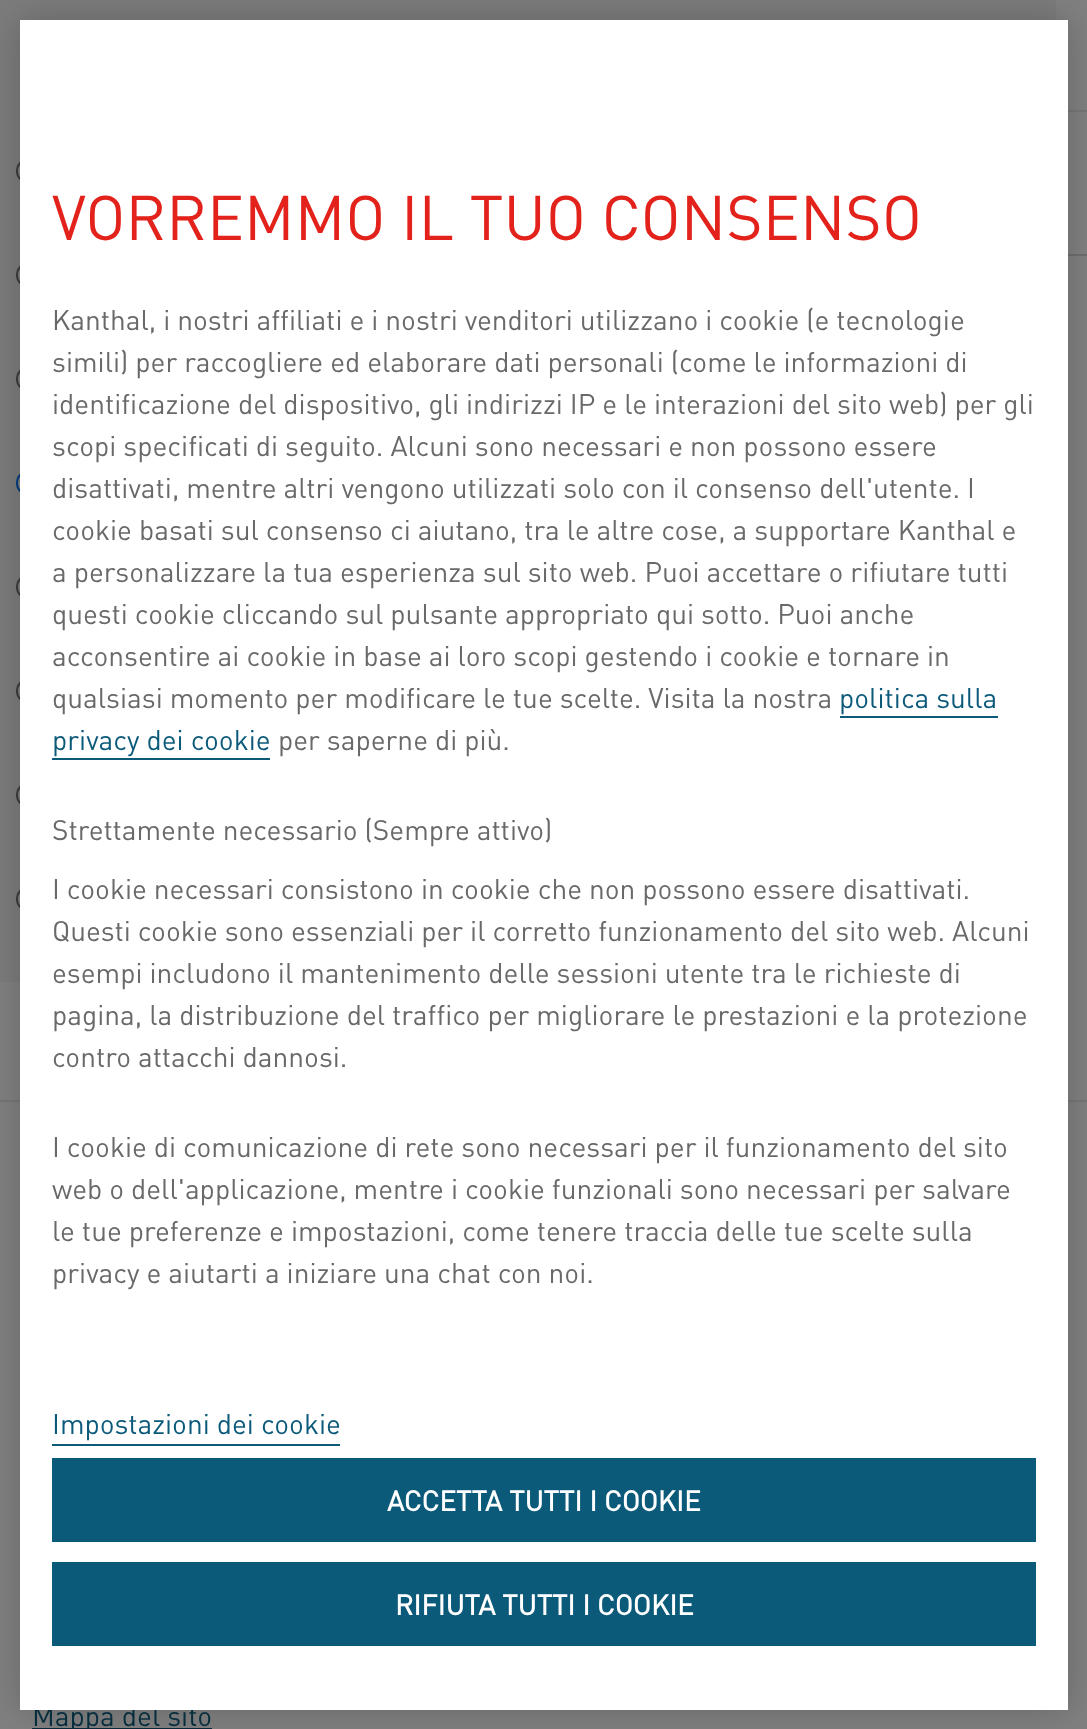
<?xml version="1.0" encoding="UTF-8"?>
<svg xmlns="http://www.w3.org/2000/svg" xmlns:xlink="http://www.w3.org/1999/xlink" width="1087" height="1729">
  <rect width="100%" height="100%" fill="#808080" />
  <rect x="1068" y="110" width="19" height="2" fill="#767676" />
  <rect width="1056" height="982" fill="#7c7c7c" />
  <circle cx="29" cy="171" r="12" fill="#808080" stroke="#3b3b3b" stroke-width="2" />
  <circle cx="29" cy="275" r="12" fill="#808080" stroke="#3b3b3b" stroke-width="2" />
  <circle cx="29" cy="379" r="12" fill="#808080" stroke="#3b3b3b" stroke-width="2" />
  <circle cx="29" cy="483" r="12" fill="#808080" stroke="#003b80" stroke-width="2" />
  <circle cx="29" cy="587" r="12" fill="#808080" stroke="#3b3b3b" stroke-width="2" />
  <circle cx="29" cy="691" r="12" fill="#808080" stroke="#3b3b3b" stroke-width="2" />
  <circle cx="29" cy="795" r="12" fill="#808080" stroke="#3b3b3b" stroke-width="2" />
  <circle cx="29" cy="899" r="12" fill="#808080" stroke="#3b3b3b" stroke-width="2" />
  <rect y="1100" width="1087" height="2" fill="#767676" />
  <rect x="1068" y="254" width="19" height="2" fill="#6e6e6e" />
  <rect x="32" y="1728" width="180" height="1" fill="#062d3d" />
  <rect x="20" y="20" width="1048" height="1690" fill="#000000" fill-opacity="0.2" filter="blur(18px)" />
  <text x="32" y="1726" style="font-family: DIN; font-size: 28px; fill: #062d3d">Mappa del sito</text>
  <rect x="20" y="20" width="1048" height="1690" fill="#ffffff" />
  <text x="52" y="1283" style="font-family: DIN; font-size: 28px; fill: #696969">privacy e aiutarti a iniziare una chat con noi.</text>
  <text x="52" y="1241" style="font-family: DIN; font-size: 28px; fill: #696969">le tue preferenze e impostazioni, come tenere traccia delle tue scelte sulla</text>
  <text x="52" y="1199" style="font-family: DIN; font-size: 28px; fill: #696969">web o dell'applicazione, mentre i cookie funzionali sono necessari per salvare</text>
  <text x="52" y="1157" style="font-family: DIN; font-size: 28px; fill: #696969">I cookie di comunicazione di rete sono necessari per il funzionamento del sito</text>
  <text x="52" y="1067" style="font-family: DIN; font-size: 28px; fill: #696969">contro attacchi dannosi.</text>
  <text x="52" y="1025" style="font-family: DIN; font-size: 28px; fill: #696969">pagina, la distribuzione del traffico per migliorare le prestazioni e la protezione</text>
  <text x="52" y="983" style="font-family: DIN; font-size: 28px; fill: #696969">esempi includono il mantenimento delle sessioni utente tra le richieste di</text>
  <text x="52" y="941" style="font-family: DIN; font-size: 28px; fill: #696969">Questi cookie sono essenziali per il corretto funzionamento del sito web. Alcuni</text>
  <text x="52" y="899" style="font-family: DIN; font-size: 28px; fill: #696969">I cookie necessari consistono in cookie che non possono essere disattivati.</text>
  <text x="52" y="840" style="font-family: DIN; font-size: 28px; fill: #696969">Strettamente necessario (Sempre attivo)</text>
  <text x="278" y="750" style="font-family: DIN; font-size: 28px; fill: #696969">per saperne di più.</text>
  <text x="52" y="750" style="font-family: DIN; font-size: 28px; fill: #0c5a7a">privacy dei cookie</text>
  <text x="839" y="708" style="font-family: DIN; font-size: 28px; fill: #0c5a7a">politica sulla</text>
  <rect x="52" y="758" width="218" height="2" fill="#0c5a7a" />
  <rect x="840" y="716" width="158" height="2" fill="#0c5a7a" />
  <text x="52" y="708" style="font-family: DIN; font-size: 28px; fill: #696969">qualsiasi momento per modificare le tue scelte. Visita la nostra</text>
  <text x="52" y="666" style="font-family: DIN; font-size: 28px; fill: #696969">acconsentire ai cookie in base ai loro scopi gestendo i cookie e tornare in</text>
  <text x="52" y="624" style="font-family: DIN; font-size: 28px; fill: #696969">questi cookie cliccando sul pulsante appropriato qui sotto. Puoi anche</text>
  <text x="52" y="582" style="font-family: DIN; font-size: 28px; fill: #696969">a personalizzare la tua esperienza sul sito web. Puoi accettare o rifiutare tutti</text>
  <text x="52" y="540" style="font-family: DIN; font-size: 28px; fill: #696969">cookie basati sul consenso ci aiutano, tra le altre cose, a supportare Kanthal e</text>
  <text x="52" y="498" style="font-family: DIN; font-size: 28px; fill: #696969">disattivati, mentre altri vengono utilizzati solo con il consenso dell'utente. I</text>
  <text x="52" y="456" style="font-family: DIN; font-size: 28px; fill: #696969">scopi specificati di seguito. Alcuni sono necessari e non possono essere</text>
  <text x="52" y="414" style="font-family: DIN; font-size: 28px; fill: #696969">identificazione del dispositivo, gli indirizzi IP e le interazioni del sito web) per gli</text>
  <text x="52" y="372" style="font-family: DIN; font-size: 28px; fill: #696969">simili) per raccogliere ed elaborare dati personali (come le informazioni di</text>
  <text x="52" y="330" style="font-family: DIN; font-size: 28px; fill: #696969">Kanthal, i nostri affiliati e i nostri venditori utilizzano i cookie (e tecnologie</text>
  <text x="52" y="240" style="font-family: DIN; font-size: 62px; fill: #e2221b">VORREMMO IL TUO CONSENSO</text>
  <rect x="52" y="1458" width="984" height="84" fill="#0c5a7a" />
  <text x="387" y="1511" style="font-family: DIN; font-size: 28px; font-weight: bold; fill: #ffffff">ACCETTA TUTTI I COOKIE</text>
  <rect x="52" y="1562" width="984" height="84" fill="#0c5a7a" />
  <text x="395" y="1615" style="font-family: DIN; font-size: 28px; font-weight: bold; fill: #ffffff">RIFIUTA TUTTI I COOKIE</text>
  <text x="52" y="1434" style="font-family: DIN; font-size: 28px; fill: #0c5a7a">Impostazioni dei cookie</text>
  <rect x="52" y="1444" width="288" height="2" fill="#0c5a7a" />
</svg>
